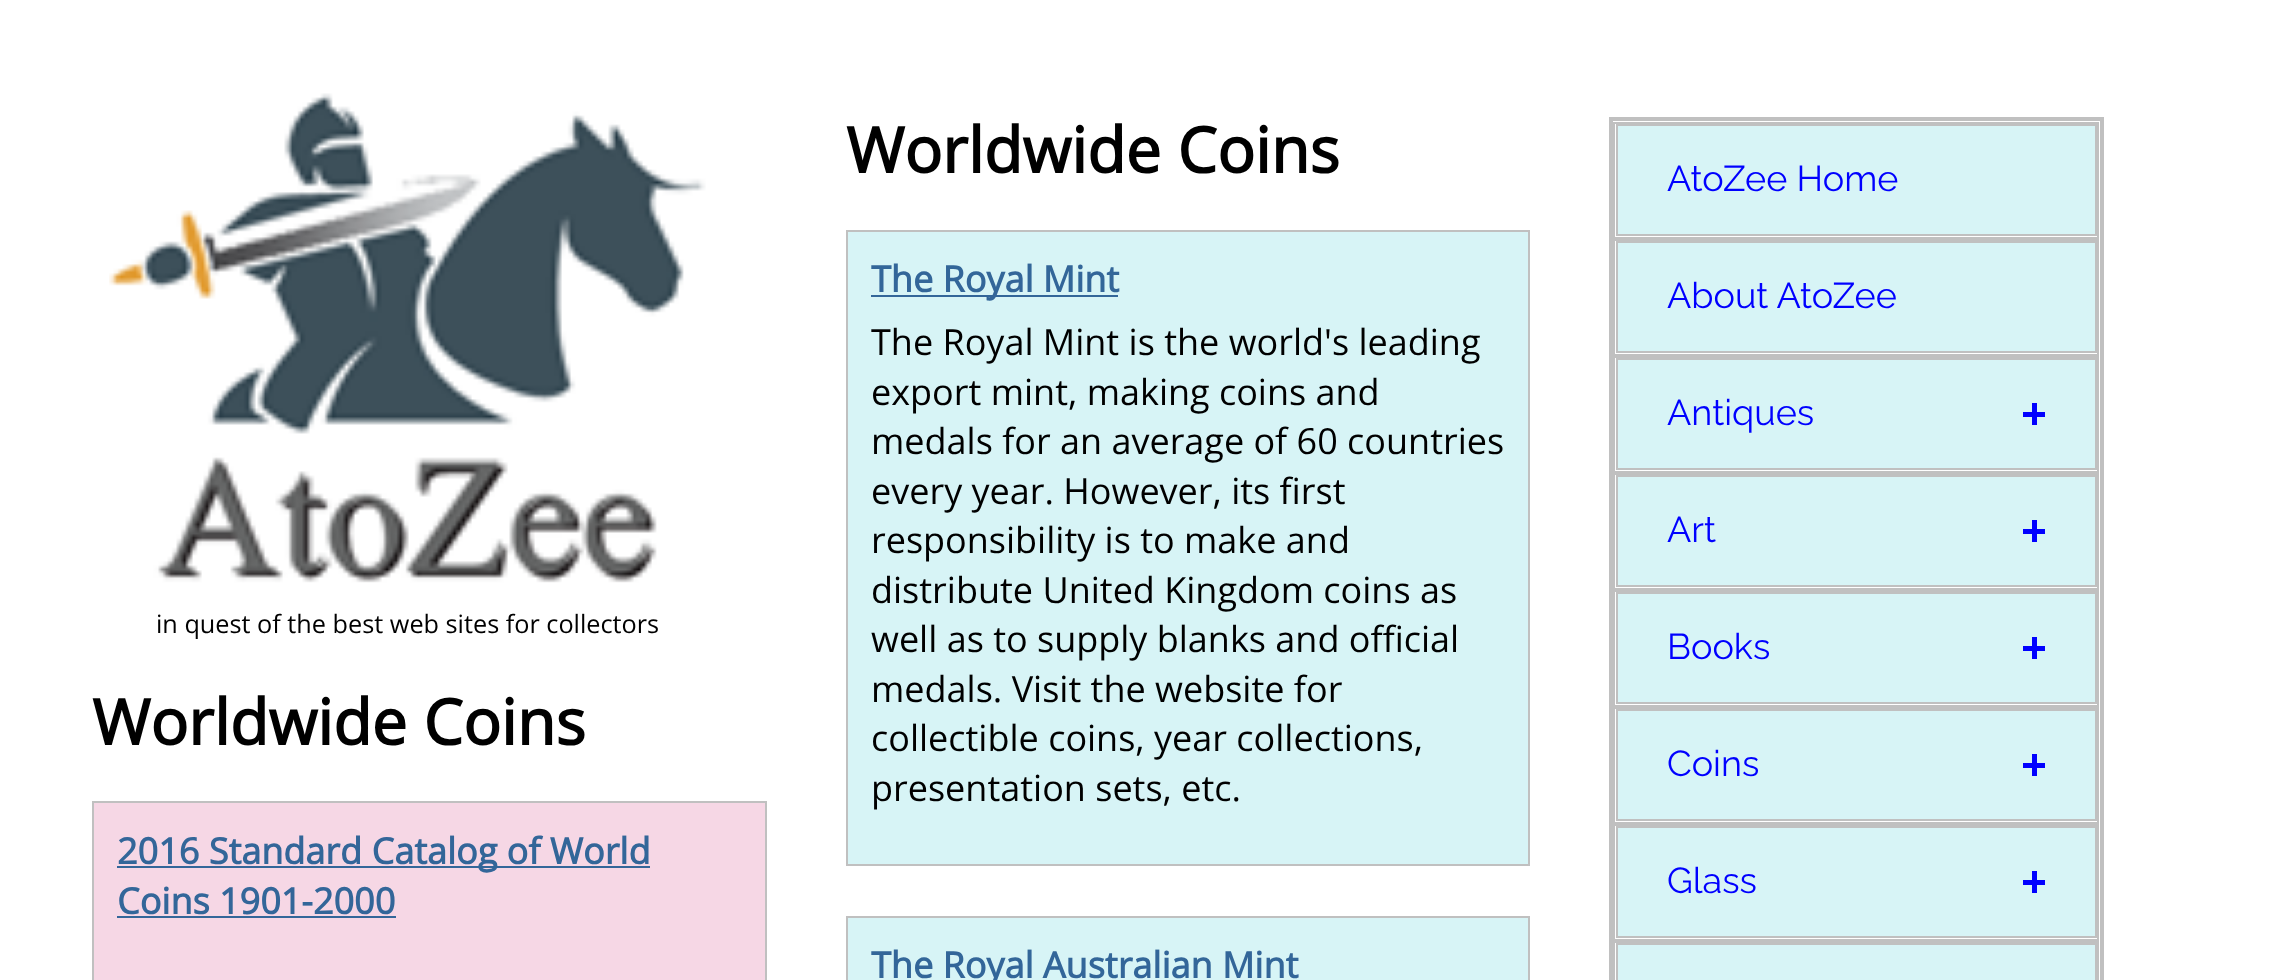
<?xml version="1.0" encoding="UTF-8"?>
<svg xmlns="http://www.w3.org/2000/svg" xmlns:xlink="http://www.w3.org/1999/xlink" width="2275" height="980">
  <rect width="100%" height="100%" fill="#ffffff" />
  <image x="109" y="93" width="597" height="490" xlink:href="image1.png" />
  <rect x="93" y="802" width="673" height="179" fill="#f6d7e5" stroke="#c0c0c0" stroke-width="2" />
  <rect x="117" y="866" width="533" height="2" fill="#336699" />
  <rect x="117" y="916" width="279" height="2" fill="#336699" />
  <rect x="847" y="231" width="682" height="634" fill="#d7f4f6" stroke="#c0c0c0" stroke-width="2" />
  <rect x="871" y="295" width="247" height="2" fill="#336699" />
  <rect x="847" y="917" width="682" height="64" fill="#d7f4f6" stroke="#c0c0c0" stroke-width="2" />
  <rect x="1610" y="118" width="493" height="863" fill="none" stroke="#c0c0c0" stroke-width="2" />
  <rect x="1612" y="120" width="489" height="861" fill="none" stroke="#c0c0c0" stroke-width="2" />
  <rect x="1614" y="123" width="484" height="115" fill="none" stroke="#c0c0c0" stroke-width="2" />
  <rect x="1617" y="125" width="479" height="110" fill="#d7f4f6" stroke="#c0c0c0" stroke-width="2" />
  <rect x="1614" y="240" width="484" height="115" fill="none" stroke="#c0c0c0" stroke-width="2" />
  <rect x="1617" y="242" width="479" height="110" fill="#d7f4f6" stroke="#c0c0c0" stroke-width="2" />
  <rect x="1614" y="357" width="484" height="115" fill="none" stroke="#c0c0c0" stroke-width="2" />
  <rect x="1617" y="359" width="479" height="110" fill="#d7f4f6" stroke="#c0c0c0" stroke-width="2" />
  <rect x="2023" y="412" width="22" height="5" fill="#0000ff" />
  <rect x="2032" y="403" width="5" height="22" fill="#0000ff" />
  <rect x="1614" y="474" width="484" height="115" fill="none" stroke="#c0c0c0" stroke-width="2" />
  <rect x="1617" y="476" width="479" height="110" fill="#d7f4f6" stroke="#c0c0c0" stroke-width="2" />
  <rect x="2023" y="529" width="22" height="5" fill="#0000ff" />
  <rect x="2032" y="520" width="5" height="22" fill="#0000ff" />
  <rect x="1614" y="591" width="484" height="115" fill="none" stroke="#c0c0c0" stroke-width="2" />
  <rect x="1617" y="593" width="479" height="110" fill="#d7f4f6" stroke="#c0c0c0" stroke-width="2" />
  <rect x="2023" y="646" width="22" height="5" fill="#0000ff" />
  <rect x="2032" y="637" width="5" height="22" fill="#0000ff" />
  <rect x="1614" y="708" width="484" height="115" fill="none" stroke="#c0c0c0" stroke-width="2" />
  <rect x="1617" y="710" width="479" height="110" fill="#d7f4f6" stroke="#c0c0c0" stroke-width="2" />
  <rect x="2023" y="763" width="22" height="5" fill="#0000ff" />
  <rect x="2032" y="754" width="5" height="22" fill="#0000ff" />
  <rect x="1614" y="825" width="484" height="115" fill="none" stroke="#c0c0c0" stroke-width="2" />
  <rect x="1617" y="827" width="479" height="110" fill="#d7f4f6" stroke="#c0c0c0" stroke-width="2" />
  <rect x="2023" y="880" width="22" height="5" fill="#0000ff" />
  <rect x="2032" y="871" width="5" height="22" fill="#0000ff" />
  <rect x="1614" y="942" width="484" height="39" fill="none" stroke="#c0c0c0" stroke-width="2" />
  <rect x="1617" y="944" width="479" height="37" fill="#d7f4f6" stroke="#c0c0c0" stroke-width="2" />
  <text x="156" y="633" style="font-family: Open Sans; font-size: 25.25px; fill: #000000">in quest of the best web sites for collectors</text>
  <text x="92" y="745" style="font-family: Open Sans; font-size: 63px; font-weight: bold; fill: #000000">Worldwide Coins</text>
  <text x="117" y="864" style="font-family: Open Sans; font-size: 36px; font-weight: bold; fill: #336699">2016 Standard Catalog of World</text>
  <text x="117" y="914" style="font-family: Open Sans; font-size: 36px; font-weight: bold; fill: #336699">Coins 1901-2000</text>
  <text x="846" y="173" style="font-family: Open Sans; font-size: 63px; font-weight: bold; fill: #000000">Worldwide Coins</text>
  <text x="871" y="292" style="font-family: Open Sans; font-size: 36px; font-weight: bold; fill: #336699">The Royal Mint</text>
  <text x="871" y="355" style="font-family: Open Sans; font-size: 36px; fill: #000000">The Royal Mint is the world's leading</text>
  <text x="871" y="405" style="font-family: Open Sans; font-size: 36px; fill: #000000">export mint, making coins and</text>
  <text x="871" y="454" style="font-family: Open Sans; font-size: 36px; fill: #000000">medals for an average of 60 countries</text>
  <text x="871" y="504" style="font-family: Open Sans; font-size: 36px; fill: #000000">every year. However, its first</text>
  <text x="871" y="553" style="font-family: Open Sans; font-size: 36px; fill: #000000">responsibility is to make and</text>
  <text x="871" y="603" style="font-family: Open Sans; font-size: 36px; fill: #000000">distribute United Kingdom coins as</text>
  <text x="871" y="652" style="font-family: Open Sans; font-size: 36px; fill: #000000">well as to supply blanks and official</text>
  <text x="871" y="702" style="font-family: Open Sans; font-size: 36px; fill: #000000">medals. Visit the website for</text>
  <text x="871" y="751" style="font-family: Open Sans; font-size: 36px; fill: #000000">collectible coins, year collections,</text>
  <text x="871" y="801" style="font-family: Open Sans; font-size: 36px; fill: #000000">presentation sets, etc.</text>
  <text x="871" y="978" style="font-family: Open Sans; font-size: 36px; font-weight: bold; fill: #336699">The Royal Australian Mint</text>
  <text x="1667" y="191" style="font-family: Raleway; font-size: 36px; fill: #0000ff">AtoZee Home</text>
  <text x="1667" y="308" style="font-family: Raleway; font-size: 36px; fill: #0000ff">About AtoZee</text>
  <text x="1667" y="425" style="font-family: Raleway; font-size: 36px; fill: #0000ff">Antiques</text>
  <text x="1667" y="542" style="font-family: Raleway; font-size: 36px; fill: #0000ff">Art</text>
  <text x="1667" y="659" style="font-family: Raleway; font-size: 36px; fill: #0000ff">Books</text>
  <text x="1667" y="776" style="font-family: Raleway; font-size: 36px; fill: #0000ff">Coins</text>
  <text x="1667" y="893" style="font-family: Raleway; font-size: 36px; fill: #0000ff">Glass</text>
</svg>
